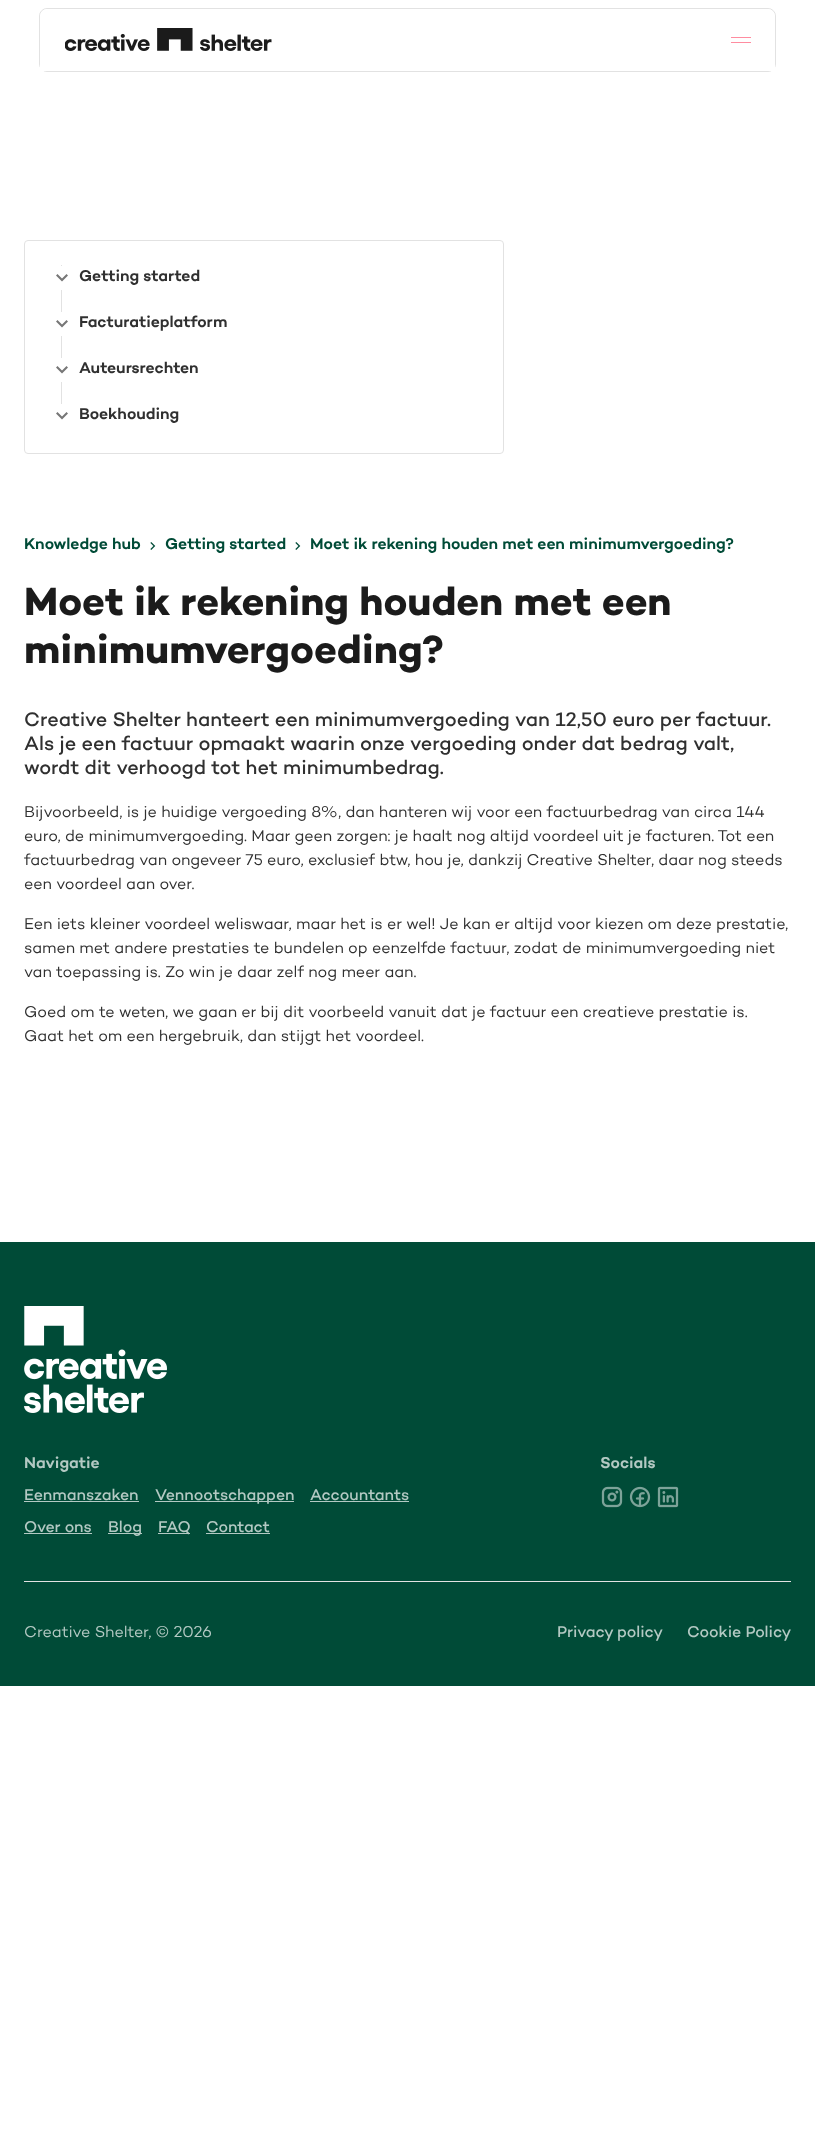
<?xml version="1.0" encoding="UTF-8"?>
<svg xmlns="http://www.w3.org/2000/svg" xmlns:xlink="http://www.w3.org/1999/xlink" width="815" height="2145">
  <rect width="100%" height="100%" fill="#ffffff" />
  <rect x="39.5" y="8.5" width="736" height="63" rx="7.5" fill="none" stroke="#e2e2e2" />
  <path d="M 48 9 h 719 c 4.5 0 8 3.5 8 8 v 54 h -735 v -54 c 0 -4.5 3.5 -8 8 -8 z" fill="#ffffff" />
  <image x="65" y="28" width="207" height="23" xlink:href="image1.png" />
  <rect x="731" y="37" width="20" height="1" fill="#ff8ca0" />
  <rect x="731" y="42" width="20" height="1" fill="#ff8ca0" />
  <rect x="24.5" y="240.5" width="479" height="213" rx="3.5" fill="none" stroke="#e2e2e2" />
  <rect x="61" y="265" width="1" height="139" fill="#e2e2e2" />
  <rect x="61" y="266" width="1" height="24" fill="#ffffff" />
  <path d="M 62 281.5 l -6 -6 l 1.5 -1.5 l 4.5 4.5 l 4.5 -4.5 l 1.5 1.5 z" fill="#777777" />
  <rect x="61" y="312" width="1" height="24" fill="#ffffff" />
  <path d="M 62 327.5 l -6 -6 l 1.5 -1.5 l 4.5 4.5 l 4.5 -4.5 l 1.5 1.5 z" fill="#777777" />
  <rect x="61" y="358" width="1" height="24" fill="#ffffff" />
  <path d="M 62 373.5 l -6 -6 l 1.5 -1.5 l 4.5 4.5 l 4.5 -4.5 l 1.5 1.5 z" fill="#777777" />
  <path d="M 62 419.5 l -6 -6 l 1.5 -1.5 l 4.5 4.5 l 4.5 -4.5 l 1.5 1.5 z" fill="#777777" />
  <image x="150" y="542" width="6" height="8" xlink:href="image2.png" />
  <image x="295" y="542" width="6" height="8" xlink:href="image2.png" />
  <rect y="1242" width="815" height="444" fill="#004b37" />
  <image x="24" y="1306" width="143" height="107" xlink:href="image3.png" />
  <rect x="24" y="1501" width="115" height="1" fill="#b3c9c3" />
  <rect x="155" y="1501" width="139" height="1" fill="#b3c9c3" />
  <rect x="310" y="1501" width="99" height="1" fill="#b3c9c3" />
  <rect x="24" y="1533" width="68" height="1" fill="#b3c9c3" />
  <rect x="108" y="1533" width="34" height="1" fill="#b3c9c3" />
  <rect x="158" y="1533" width="32" height="1" fill="#b3c9c3" />
  <rect x="206" y="1533" width="64" height="1" fill="#b3c9c3" />
  <image x="601" y="1486" width="22" height="22" xlink:href="image4.png" />
  <image x="629" y="1486" width="22" height="22" xlink:href="image5.png" />
  <image x="657" y="1486" width="22" height="22" xlink:href="image6.png" />
  <rect x="24" y="1581" width="767" height="1" fill="#e2e2e2" />
  <text x="79" y="281" style="font-family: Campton; font-size: 16px; font-weight: 600; fill: #303030">Getting started</text>
  <text x="79" y="327" style="font-family: Campton; font-size: 16px; font-weight: 600; fill: #303030">Facturatieplatform</text>
  <text x="79" y="373" style="font-family: Campton; font-size: 16px; font-weight: 600; fill: #303030">Auteursrechten</text>
  <text x="79" y="419" style="font-family: Campton; font-size: 16px; font-weight: 600; fill: #303030">Boekhouding</text>
  <text x="24" y="549" style="font-family: Campton; font-size: 16px; font-weight: 600; fill: #004b37">Knowledge hub</text>
  <text x="165" y="549" style="font-family: Campton; font-size: 16px; font-weight: 600; fill: #004b37">Getting started</text>
  <text x="310" y="549" style="font-family: Campton; font-size: 16px; font-weight: 600; fill: #004b37">Moet ik rekening houden met een minimumvergoeding?</text>
  <text x="24" y="615" style="font-family: Campton; font-size: 40px; font-weight: bold; fill: #1b1b1b">Moet ik rekening houden met een</text>
  <text x="24" y="663" style="font-family: Campton; font-size: 40px; font-weight: bold; fill: #1b1b1b">minimumvergoeding?</text>
  <text x="24" y="726" style="font-family: Campton; font-size: 20px; font-weight: 500; fill: #303030">Creative Shelter hanteert een minimumvergoeding van 12,50 euro per factuur.</text>
  <text x="24" y="750" style="font-family: Campton; font-size: 20px; font-weight: 500; fill: #303030">Als je een factuur opmaakt waarin onze vergoeding onder dat bedrag valt,</text>
  <text x="24" y="774" style="font-family: Campton; font-size: 20px; font-weight: 500; fill: #303030">wordt dit verhoogd tot het minimumbedrag.</text>
  <text x="24" y="817" style="font-family: Campton; font-size: 16px; fill: #303030">Bijvoorbeeld, is je huidige vergoeding 8%, dan hanteren wij voor een factuurbedrag van circa 144</text>
  <text x="24" y="841" style="font-family: Campton; font-size: 16px; fill: #303030">euro, de minimumvergoeding. Maar geen zorgen: je haalt nog altijd voordeel uit je facturen. Tot een</text>
  <text x="24" y="865" style="font-family: Campton; font-size: 16px; fill: #303030">factuurbedrag van ongeveer 75 euro, exclusief btw, hou je, dankzij Creative Shelter, daar nog steeds</text>
  <text x="24" y="889" style="font-family: Campton; font-size: 16px; fill: #303030">een voordeel aan over.</text>
  <text x="24" y="929" style="font-family: Campton; font-size: 16px; fill: #303030">Een iets kleiner voordeel weliswaar, maar het is er wel! Je kan er altijd voor kiezen om deze prestatie,</text>
  <text x="24" y="953" style="font-family: Campton; font-size: 16px; fill: #303030">samen met andere prestaties te bundelen op eenzelfde factuur, zodat de minimumvergoeding niet</text>
  <text x="24" y="977" style="font-family: Campton; font-size: 16px; fill: #303030">van toepassing is. Zo win je daar zelf nog meer aan.</text>
  <text x="24" y="1017" style="font-family: Campton; font-size: 16px; fill: #303030">Goed om te weten, we gaan er bij dit voorbeeld vanuit dat je factuur een creatieve prestatie is.</text>
  <text x="24" y="1041" style="font-family: Campton; font-size: 16px; fill: #303030">Gaat het om een hergebruik, dan stijgt het voordeel.</text>
  <text x="24" y="1468" style="font-family: Campton; font-size: 16px; font-weight: 600; fill: #b3c9c3">Navigatie</text>
  <text x="24" y="1500" style="font-family: Campton; font-size: 16px; font-weight: 500; fill: #b3c9c3">Eenmanszaken</text>
  <text x="155" y="1500" style="font-family: Campton; font-size: 16px; font-weight: 500; fill: #b3c9c3">Vennootschappen</text>
  <text x="310" y="1500" style="font-family: Campton; font-size: 16px; font-weight: 500; fill: #b3c9c3">Accountants</text>
  <text x="24" y="1532" style="font-family: Campton; font-size: 16px; font-weight: 500; fill: #b3c9c3">Over ons</text>
  <text x="108" y="1532" style="font-family: Campton; font-size: 16px; font-weight: 500; fill: #b3c9c3">Blog</text>
  <text x="158" y="1532" style="font-family: Campton; font-size: 16px; font-weight: 500; fill: #b3c9c3">FAQ</text>
  <text x="206" y="1532" style="font-family: Campton; font-size: 16px; font-weight: 500; fill: #b3c9c3">Contact</text>
  <text x="600" y="1468" style="font-family: Campton; font-size: 16px; font-weight: 600; fill: #b3c9c3">Socials</text>
  <text x="24" y="1637" style="font-family: Campton; font-size: 16px; fill: #b3c9c3">Creative Shelter, © 2026</text>
  <text x="557" y="1637" style="font-family: Campton; font-size: 16px; font-weight: 500; fill: #b3c9c3">Privacy policy</text>
  <text x="687" y="1637" style="font-family: Campton; font-size: 16px; font-weight: 500; fill: #b3c9c3">Cookie Policy</text>
</svg>
